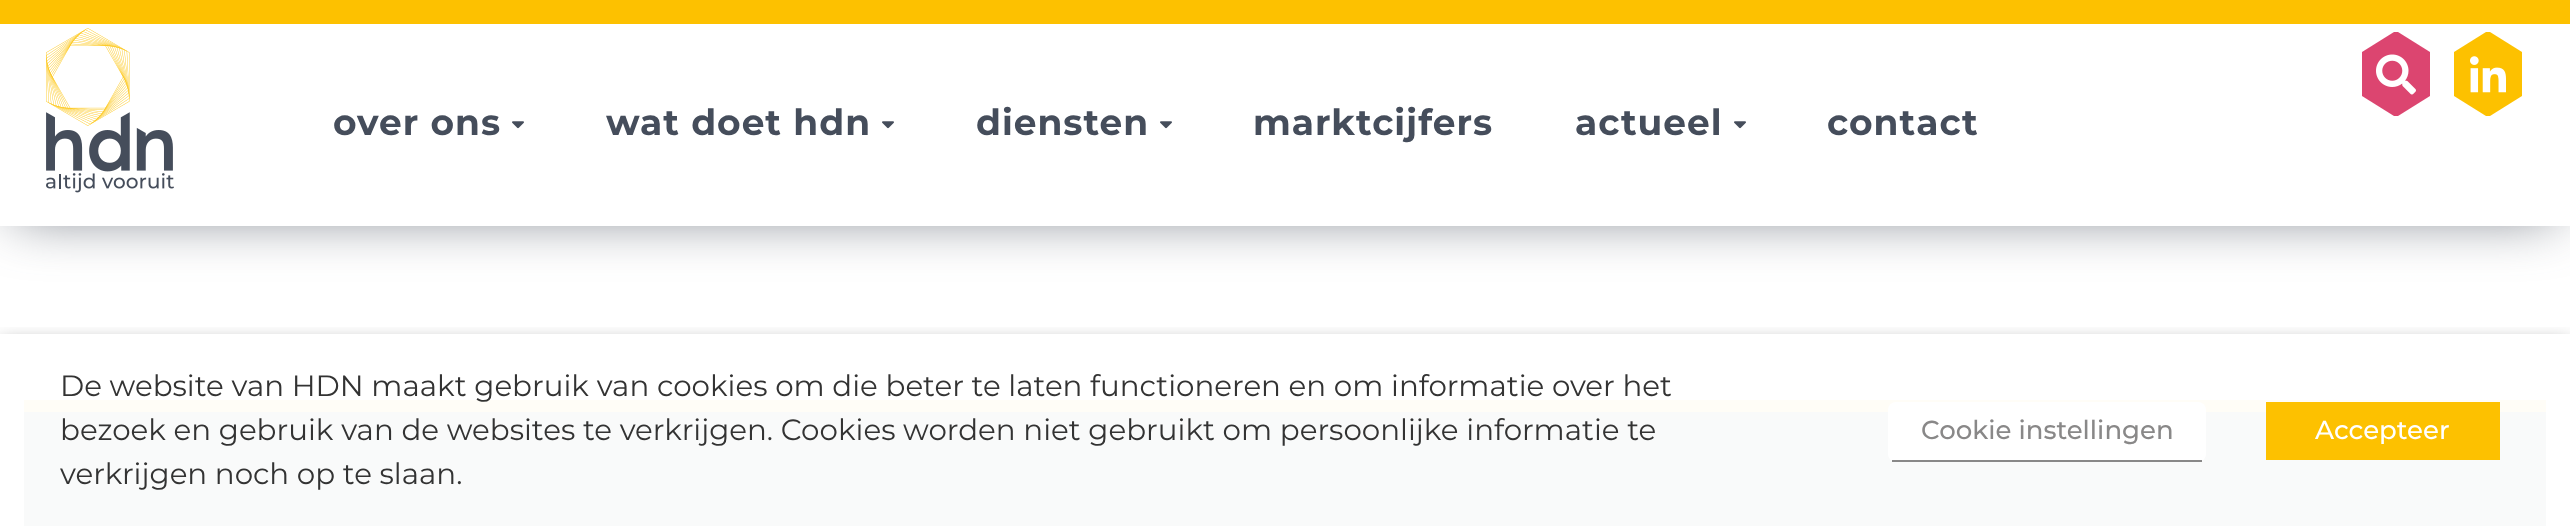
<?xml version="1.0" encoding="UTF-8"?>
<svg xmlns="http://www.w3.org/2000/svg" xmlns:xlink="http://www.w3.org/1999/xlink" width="2570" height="526">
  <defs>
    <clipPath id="clip1"><rect x="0" y="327" width="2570" height="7" /></clipPath>
  </defs>
  <rect width="100%" height="100%" fill="#ffffff" />
  <rect x="14" y="16" width="2542" height="200" fill="#454d5b" fill-opacity="0.75" filter="blur(28px)" />
  <rect y="24" width="2570" height="202" fill="#ffffff" />
  <rect width="2570" height="24" fill="#fdc100" />
  <image x="46" y="28" width="128" height="165" xlink:href="image1.png" />
  <rect x="2362" y="52" width="68" height="44" fill="#dc4570" />
  <path d="M 2430 52 h -68 l 32 -20 h 4 z" fill="#dc4570" />
  <image x="2376" y="54" width="40" height="41" xlink:href="image2.png" />
  <path d="M 2362 96 h 68 l -32 20 h -4 z" fill="#dc4570" />
  <rect x="2454" y="52" width="68" height="44" fill="#fdc100" />
  <path d="M 2522 52 h -68 l 32 -20 h 4 z" fill="#fdc100" />
  <image x="2470" y="56" width="36" height="37" xlink:href="image3.png" />
  <path d="M 2454 96 h 68 l -32 20 h -4 z" fill="#fdc100" />
  <image x="512" y="121" width="12" height="8" xlink:href="image4.png" />
  <image x="882" y="121" width="12" height="8" xlink:href="image4.png" />
  <image x="1160" y="121" width="12" height="8" xlink:href="image4.png" />
  <image x="1734" y="121" width="12" height="8" xlink:href="image4.png" />
  <rect x="24" y="412" width="2522" height="114" fill="#f9fafa" />
  <rect x="24" y="400" width="2522" height="12" fill="#fffdf7" />
  <g clip-path="url(#clip1)">
    <rect y="344" width="2570" height="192" fill="#000000" fill-opacity="0.5" filter="blur(10px)" />
  </g>
  <rect x="1888" y="402" width="318" height="60" rx="8" fill="#ffffff" />
  <rect x="1892" y="460" width="310" height="2" fill="#898888" />
  <rect x="2266" y="402" width="234" height="58" fill="#fdc100" />
  <text x="333" y="135" style="font-family: Montserrat; font-size: 36px; font-weight: bold; letter-spacing: 1px; fill: #454d5b">over ons</text>
  <text x="606" y="135" style="font-family: Montserrat; font-size: 36px; font-weight: bold; letter-spacing: 1px; fill: #454d5b">wat doet hdn</text>
  <text x="976" y="135" style="font-family: Montserrat; font-size: 36px; font-weight: bold; letter-spacing: 1px; fill: #454d5b">diensten</text>
  <text x="1253" y="135" style="font-family: Montserrat; font-size: 36px; font-weight: bold; letter-spacing: 1px; fill: #454d5b">marktcijfers</text>
  <text x="1575" y="135" style="font-family: Montserrat; font-size: 36px; font-weight: bold; letter-spacing: 1px; fill: #454d5b">actueel</text>
  <text x="1827" y="135" style="font-family: Montserrat; font-size: 36px; font-weight: bold; letter-spacing: 1px; fill: #454d5b">contact</text>
  <text x="60" y="396" style="font-family: Montserrat; font-size: 29.33px; fill: #333333">De website van HDN maakt gebruik van cookies om die beter te laten functioneren en om informatie over het</text>
  <text x="60" y="440" style="font-family: Montserrat; font-size: 29.33px; fill: #333333">bezoek en gebruik van de websites te verkrijgen. Cookies worden niet gebruikt om persoonlijke informatie te</text>
  <text x="60" y="484" style="font-family: Montserrat; font-size: 29.33px; fill: #333333">verkrijgen noch op te slaan.</text>
  <text x="1921" y="439" style="font-family: Montserrat; font-size: 26px; font-weight: 500; fill: #898888">Cookie instellingen</text>
  <text x="2315" y="439" style="font-family: Montserrat; font-size: 26px; font-weight: 500; fill: #ffffff">Accepteer</text>
</svg>
